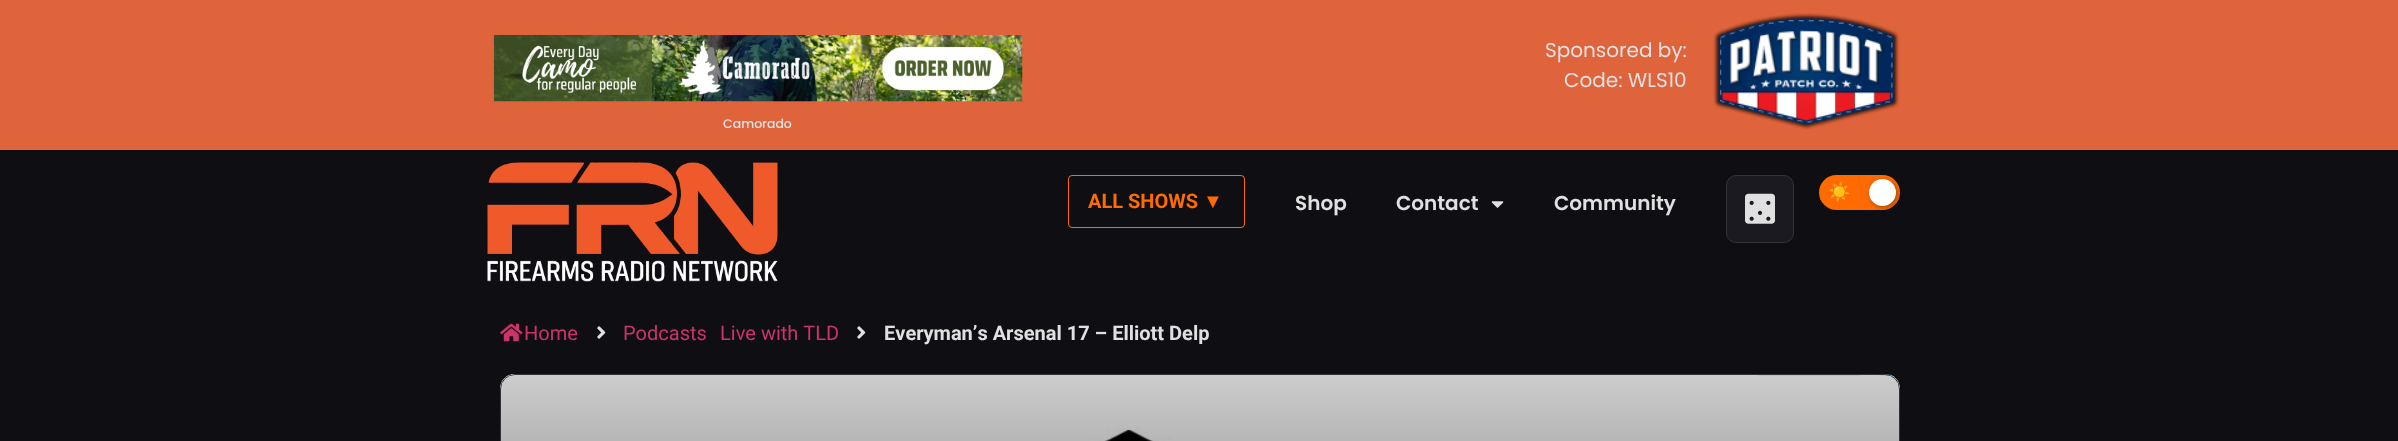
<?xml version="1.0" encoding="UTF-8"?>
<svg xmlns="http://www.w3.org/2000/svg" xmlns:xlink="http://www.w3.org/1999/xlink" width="2398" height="441">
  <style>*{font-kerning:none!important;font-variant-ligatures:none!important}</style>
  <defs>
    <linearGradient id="g1" gradientUnits="userSpaceOnUse" x1="1200" y1="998" x2="1200" y2="375"><stop offset="0" stop-color="#000000" stop-opacity="0.95" /><stop offset="0.5" stop-color="#000000" stop-opacity="0.6" /><stop offset="1" stop-color="#000000" stop-opacity="0.2" /></linearGradient>
  </defs>
  <rect width="100%" height="100%" fill="#0f0f13" />
  <rect width="2398" height="150" fill="#e0643b" />
  <image x="1713" y="13" width="187" height="117" xlink:href="image1.png" />
  <image x="493" y="35" width="530" height="67" xlink:href="image2.png" />
  <image x="487" y="162" width="291" height="120" xlink:href="image3.png" />
  <rect x="1068.5" y="175.5" width="176" height="52" rx="3.5" fill="none" stroke="#ff6b00" />
  <image x="1491" y="201" width="13" height="7" xlink:href="image4.png" />
  <rect x="1726.5" y="175.5" width="67" height="67" rx="9.5" fill="#1a1a20" stroke="#333333" />
  <image x="1745" y="193" width="30" height="31" xlink:href="image5.png" />
  <rect x="1819" y="175" width="81" height="35" rx="17.5" fill="#ff6b00" />
  <rect x="1870" y="180" width="28" height="28" rx="14" fill="#000000" fill-opacity="0.3" filter="blur(2px)" />
  <circle cx="1882.5" cy="192.5" r="13.5" fill="#ffffff" />
  <image x="500" y="323" width="23" height="19" xlink:href="image6.png" />
  <image x="597" y="326" width="9" height="13" xlink:href="image7.png" />
  <image x="857" y="326" width="9" height="13" xlink:href="image7.png" />
  <image x="500" y="374" width="1400" height="67" xlink:href="image8.png" />
  <rect x="500.5" y="374.5" width="1399" height="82" rx="14.5" fill="none" stroke="#333333" />
  <rect x="501" y="375" width="1398" height="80" rx="14" fill="url(#g1)" />
  <text x="1545" y="57" style="font-family: Poppins; font-size: 20px; fill: #e0e0e0">Sponsored by:</text>
  <text x="1564" y="87" style="font-family: Poppins; font-size: 20px; fill: #e0e0e0">Code: WLS10</text>
  <text x="723" y="128" style="font-family: Poppins; font-size: 12.5px; font-weight: 500; fill: #e0e0e0">Camorado</text>
  <text x="1088" y="208" style="font-family: Roboto; font-size: 20px; font-weight: bold; fill: #ff6b00">ALL SHOWS</text>
  <text x="1203" y="208" style="font-family: Liberation Sans; font-size: 20px; font-weight: bold; fill: #ff6b00">▼</text>
  <text x="1295" y="210" style="font-family: Poppins; font-size: 20px; font-weight: 600; fill: #e0e0e0">Shop</text>
  <text x="1396" y="210" style="font-family: Poppins; font-size: 20px; font-weight: 600; fill: #e0e0e0">Contact</text>
  <text x="1554" y="210" style="font-family: Poppins; font-size: 20px; font-weight: 600; fill: #e0e0e0">Community</text>
  <text x="1828" y="198" style="font-family: Noto Color Emoji; font-size: 18px; fill: #ffffff">☀</text>
  <text x="524" y="340" style="font-family: Roboto; font-size: 20px; fill: #cc3366">Home</text>
  <text x="623" y="340" style="font-family: Roboto; font-size: 20px; fill: #cc3366">Podcasts</text>
  <text x="720" y="340" style="font-family: Roboto; font-size: 20px; fill: #cc3366">Live with TLD</text>
  <text x="884" y="340" style="font-family: Roboto; font-size: 20px; font-weight: bold; fill: #e0e0e0">Everyman’s Arsenal 17 – Elliott Delp</text>
</svg>
